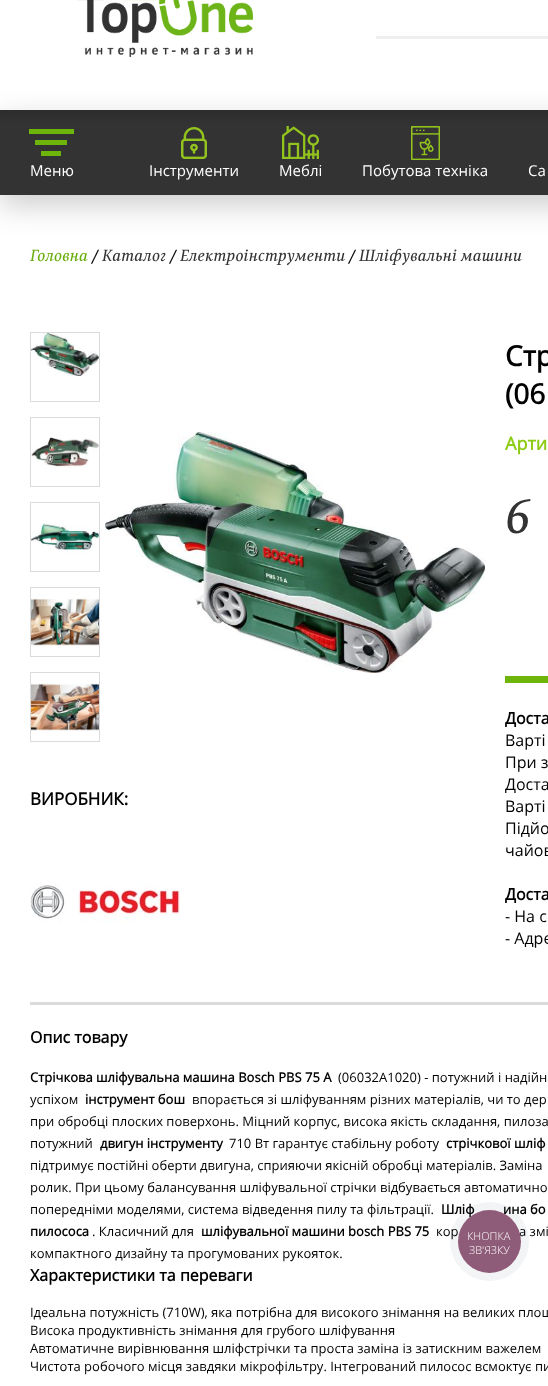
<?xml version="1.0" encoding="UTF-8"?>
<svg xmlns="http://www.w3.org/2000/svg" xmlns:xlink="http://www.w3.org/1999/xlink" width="548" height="1386">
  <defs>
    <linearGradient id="g1" gradientUnits="userSpaceOnUse" x1="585" y1="110" x2="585" y2="195"><stop offset="0" stop-color="#2c2c2c" /><stop offset="0.16" stop-color="#333333" /><stop offset="1" stop-color="#333333" /></linearGradient>
  </defs>
  <rect width="100%" height="100%" fill="#ffffff" />
  <image x="77" y="0" width="176" height="57" xlink:href="image1.png" />
  <rect x="376" y="36" width="172" height="3" fill="#efefed" />
  <rect y="120" width="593" height="85" fill="#000000" fill-opacity="0.2" filter="blur(15px)" />
  <rect y="110" width="548" height="85" fill="url(#g1)" />
  <image x="29" y="129" width="45" height="27" xlink:href="image2.png" />
  <image x="181" y="127" width="26" height="32" xlink:href="image3.png" />
  <image x="282" y="126" width="37" height="33" xlink:href="image4.png" />
  <image x="411" y="126" width="29" height="34" xlink:href="image5.png" />
  <rect x="30.5" y="332.5" width="69" height="69" fill="none" stroke="#dbdbdb" />
  <image x="31" y="333" width="68" height="43" xlink:href="image6.png" />
  <rect x="30.5" y="417.5" width="69" height="69" fill="none" stroke="#dbdbdb" />
  <image x="31" y="437" width="68" height="32" xlink:href="image7.png" />
  <rect x="30.5" y="502.5" width="69" height="69" fill="none" stroke="#dbdbdb" />
  <image x="31" y="523" width="68" height="31" xlink:href="image8.png" />
  <rect x="30.5" y="587.5" width="69" height="69" fill="none" stroke="#dbdbdb" />
  <image x="31" y="595" width="68" height="51" xlink:href="image9.png" />
  <rect x="30.5" y="672.5" width="69" height="69" fill="none" stroke="#dbdbdb" />
  <image x="31" y="683" width="68" height="48" xlink:href="image10.png" />
  <image x="105" y="432" width="380" height="241" xlink:href="image11.png" />
  <image x="30" y="883" width="150" height="40" xlink:href="image12.png" />
  <rect x="505" y="676" width="43" height="7" fill="#6eb50b" />
  <rect x="30" y="1002" width="518" height="3" fill="#dbdbdb" />
  <circle cx="489.5" cy="1241.5" r="39.5" fill="#2a405d" fill-opacity="0.06" />
  <text x="30" y="176" style="font-family: Open Sans; font-size: 15px; fill: #ffffff">Меню</text>
  <text x="149" y="176" style="font-family: Open Sans; font-size: 15px; fill: #ffffff">Інструменти</text>
  <text x="279" y="176" style="font-family: Open Sans; font-size: 15px; fill: #ffffff">Меблі</text>
  <text x="362" y="176" style="font-family: Open Sans; font-size: 15px; fill: #ffffff">Побутова техніка</text>
  <text x="528" y="176" style="font-family: Open Sans; font-size: 15px; fill: #ffffff">Са</text>
  <text x="30" y="261" style="font-family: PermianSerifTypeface; font-size: 16px; font-style: italic; fill: #69ad0b">Головна</text>
  <text x="92" y="261" style="font-family: PermianSerifTypeface; font-size: 16px; font-style: italic; fill: #000000">/</text>
  <text x="102" y="261" style="font-family: PermianSerifTypeface; font-size: 16px; font-style: italic; fill: #333333">Каталог</text>
  <text x="170" y="261" style="font-family: PermianSerifTypeface; font-size: 16px; font-style: italic; fill: #000000">/</text>
  <text x="180" y="261" style="font-family: PermianSerifTypeface; font-size: 16px; font-style: italic; fill: #333333">Електроінструменти</text>
  <text x="349" y="261" style="font-family: PermianSerifTypeface; font-size: 16px; font-style: italic; fill: #000000">/</text>
  <text x="359" y="261" style="font-family: PermianSerifTypeface; font-size: 16px; font-style: italic; fill: #333333">Шліфувальні машини</text>
  <text x="30" y="805" style="font-family: Open Sans; font-size: 17px; font-weight: bold; fill: #000000">ВИРОБНИК:</text>
  <text x="505" y="366" style="font-family: Open Sans; font-size: 28px; font-weight: bold; fill: #000000">Стр</text>
  <text x="505" y="404" style="font-family: Open Sans; font-size: 28px; font-weight: bold; fill: #000000">(06</text>
  <text x="505" y="450" style="font-family: Open Sans; font-size: 18px; font-weight: bold; fill: #8dcb14">Арти</text>
  <text x="505" y="533" style="font-family: PermianSerifTypeface; font-size: 48px; font-style: italic; fill: #333333">6</text>
  <text x="505" y="724" style="font-family: Open Sans; font-size: 16px; font-weight: bold; fill: #000000">Доста</text>
  <text x="505" y="746" style="font-family: Open Sans; font-size: 16px; fill: #000000">Варті</text>
  <text x="505" y="768" style="font-family: Open Sans; font-size: 16px; fill: #000000">При з</text>
  <text x="505" y="790" style="font-family: Open Sans; font-size: 16px; fill: #000000">Доста</text>
  <text x="505" y="812" style="font-family: Open Sans; font-size: 16px; fill: #000000">Варті</text>
  <text x="505" y="834" style="font-family: Open Sans; font-size: 16px; fill: #000000">Підйо</text>
  <text x="505" y="856" style="font-family: Open Sans; font-size: 16px; fill: #000000">чайов</text>
  <text x="505" y="900" style="font-family: Open Sans; font-size: 16px; font-weight: bold; fill: #000000">Доста</text>
  <text x="505" y="922" style="font-family: Open Sans; font-size: 16px; fill: #000000">- На с</text>
  <text x="505" y="944" style="font-family: Open Sans; font-size: 16px; fill: #000000">- Адре</text>
  <text x="30" y="1043" style="font-family: Open Sans; font-size: 16px; font-weight: bold; fill: #000000">Опис товару</text>
  <text x="30" y="1082" style="font-family: Open Sans; font-size: 13px; font-weight: bold; fill: #000000">Стрічкова шліфувальна машина Bosch PBS 75 A</text>
  <text x="338" y="1082" style="font-family: Open Sans; font-size: 13px; fill: #000000">(06032A1020) - потужний і надійн</text>
  <text x="30" y="1104" style="font-family: Open Sans; font-size: 13px; fill: #000000">успіхом</text>
  <text x="85" y="1104" style="font-family: Open Sans; font-size: 13px; font-weight: bold; fill: #000000">інструмент бош</text>
  <text x="192" y="1104" style="font-family: Open Sans; font-size: 13px; fill: #000000">впорається зі шліфуванням різних матеріалів, чи то дер</text>
  <text x="30" y="1126" style="font-family: Open Sans; font-size: 13px; fill: #000000">при обробці плоских поверхонь. Міцний корпус, висока якість складання, пилоза</text>
  <text x="30" y="1148" style="font-family: Open Sans; font-size: 13px; fill: #000000">потужний</text>
  <text x="100" y="1148" style="font-family: Open Sans; font-size: 13px; font-weight: bold; fill: #000000">двигун інструменту</text>
  <text x="229" y="1148" style="font-family: Open Sans; font-size: 13px; fill: #000000">710 Вт гарантує стабільну роботу</text>
  <text x="446" y="1148" style="font-family: Open Sans; font-size: 13px; font-weight: bold; fill: #000000">стрічкової шліф</text>
  <text x="30" y="1170" style="font-family: Open Sans; font-size: 13px; fill: #000000">підтримує постійні оберти двигуна, сприяючи якісній обробці матеріалів. Заміна</text>
  <text x="30" y="1192" style="font-family: Open Sans; font-size: 13px; fill: #000000">ролик. При цьому балансування шліфувальної стрічки відбувається автоматично</text>
  <text x="30" y="1214" style="font-family: Open Sans; font-size: 13px; fill: #000000">попередніми моделями, система відведення пилу та фільтрації.</text>
  <text x="441" y="1214" style="font-family: Open Sans; font-size: 13px; font-weight: bold; fill: #000000">Шліф</text>
  <text x="503" y="1214" style="font-family: Open Sans; font-size: 13px; font-weight: bold; fill: #000000">ина бо</text>
  <text x="30" y="1236" style="font-family: Open Sans; font-size: 13px; font-weight: bold; fill: #000000">пилососа</text>
  <text x="92" y="1236" style="font-family: Open Sans; font-size: 13px; fill: #000000">. Класичний для</text>
  <text x="201" y="1236" style="font-family: Open Sans; font-size: 13px; font-weight: bold; fill: #000000">шліфувальної машини bosch PBS 75</text>
  <text x="436" y="1236" style="font-family: Open Sans; font-size: 13px; fill: #000000">кор</text>
  <text x="519" y="1236" style="font-family: Open Sans; font-size: 13px; fill: #000000">а змі</text>
  <text x="30" y="1258" style="font-family: Open Sans; font-size: 13px; fill: #000000">компактного дизайну та прогумованих рукояток.</text>
  <text x="30" y="1281" style="font-family: Open Sans; font-size: 16px; font-weight: bold; fill: #000000">Характеристики та переваги</text>
  <text x="30" y="1317" style="font-family: Open Sans; font-size: 13px; fill: #000000">Ідеальна потужність (710W), яка потрібна для високого знімання на великих площ</text>
  <text x="30" y="1335" style="font-family: Open Sans; font-size: 13px; fill: #000000">Висока продуктивність знімання для грубого шліфування</text>
  <text x="30" y="1353" style="font-family: Open Sans; font-size: 13px; fill: #000000">Автоматичне вирівнювання шліфстрічки та проста заміна із затискним важелем</text>
  <text x="30" y="1371" style="font-family: Open Sans; font-size: 13px; fill: #000000">Чистота робочого місця завдяки мікрофільтру. Інтегрований пилосос всмоктує пи</text>
  <circle cx="489.5" cy="1241.5" r="31.5" fill="#854d6d" fill-opacity="0.92" />
  <text x="467" y="1240" style="font-family: Open Sans; font-size: 11px; font-weight: 300; fill: #ffffff">КНОПКА</text>
  <text x="469" y="1254" style="font-family: Open Sans; font-size: 11px; font-weight: 300; fill: #ffffff">ЗВ'ЯЗКУ</text>
</svg>
